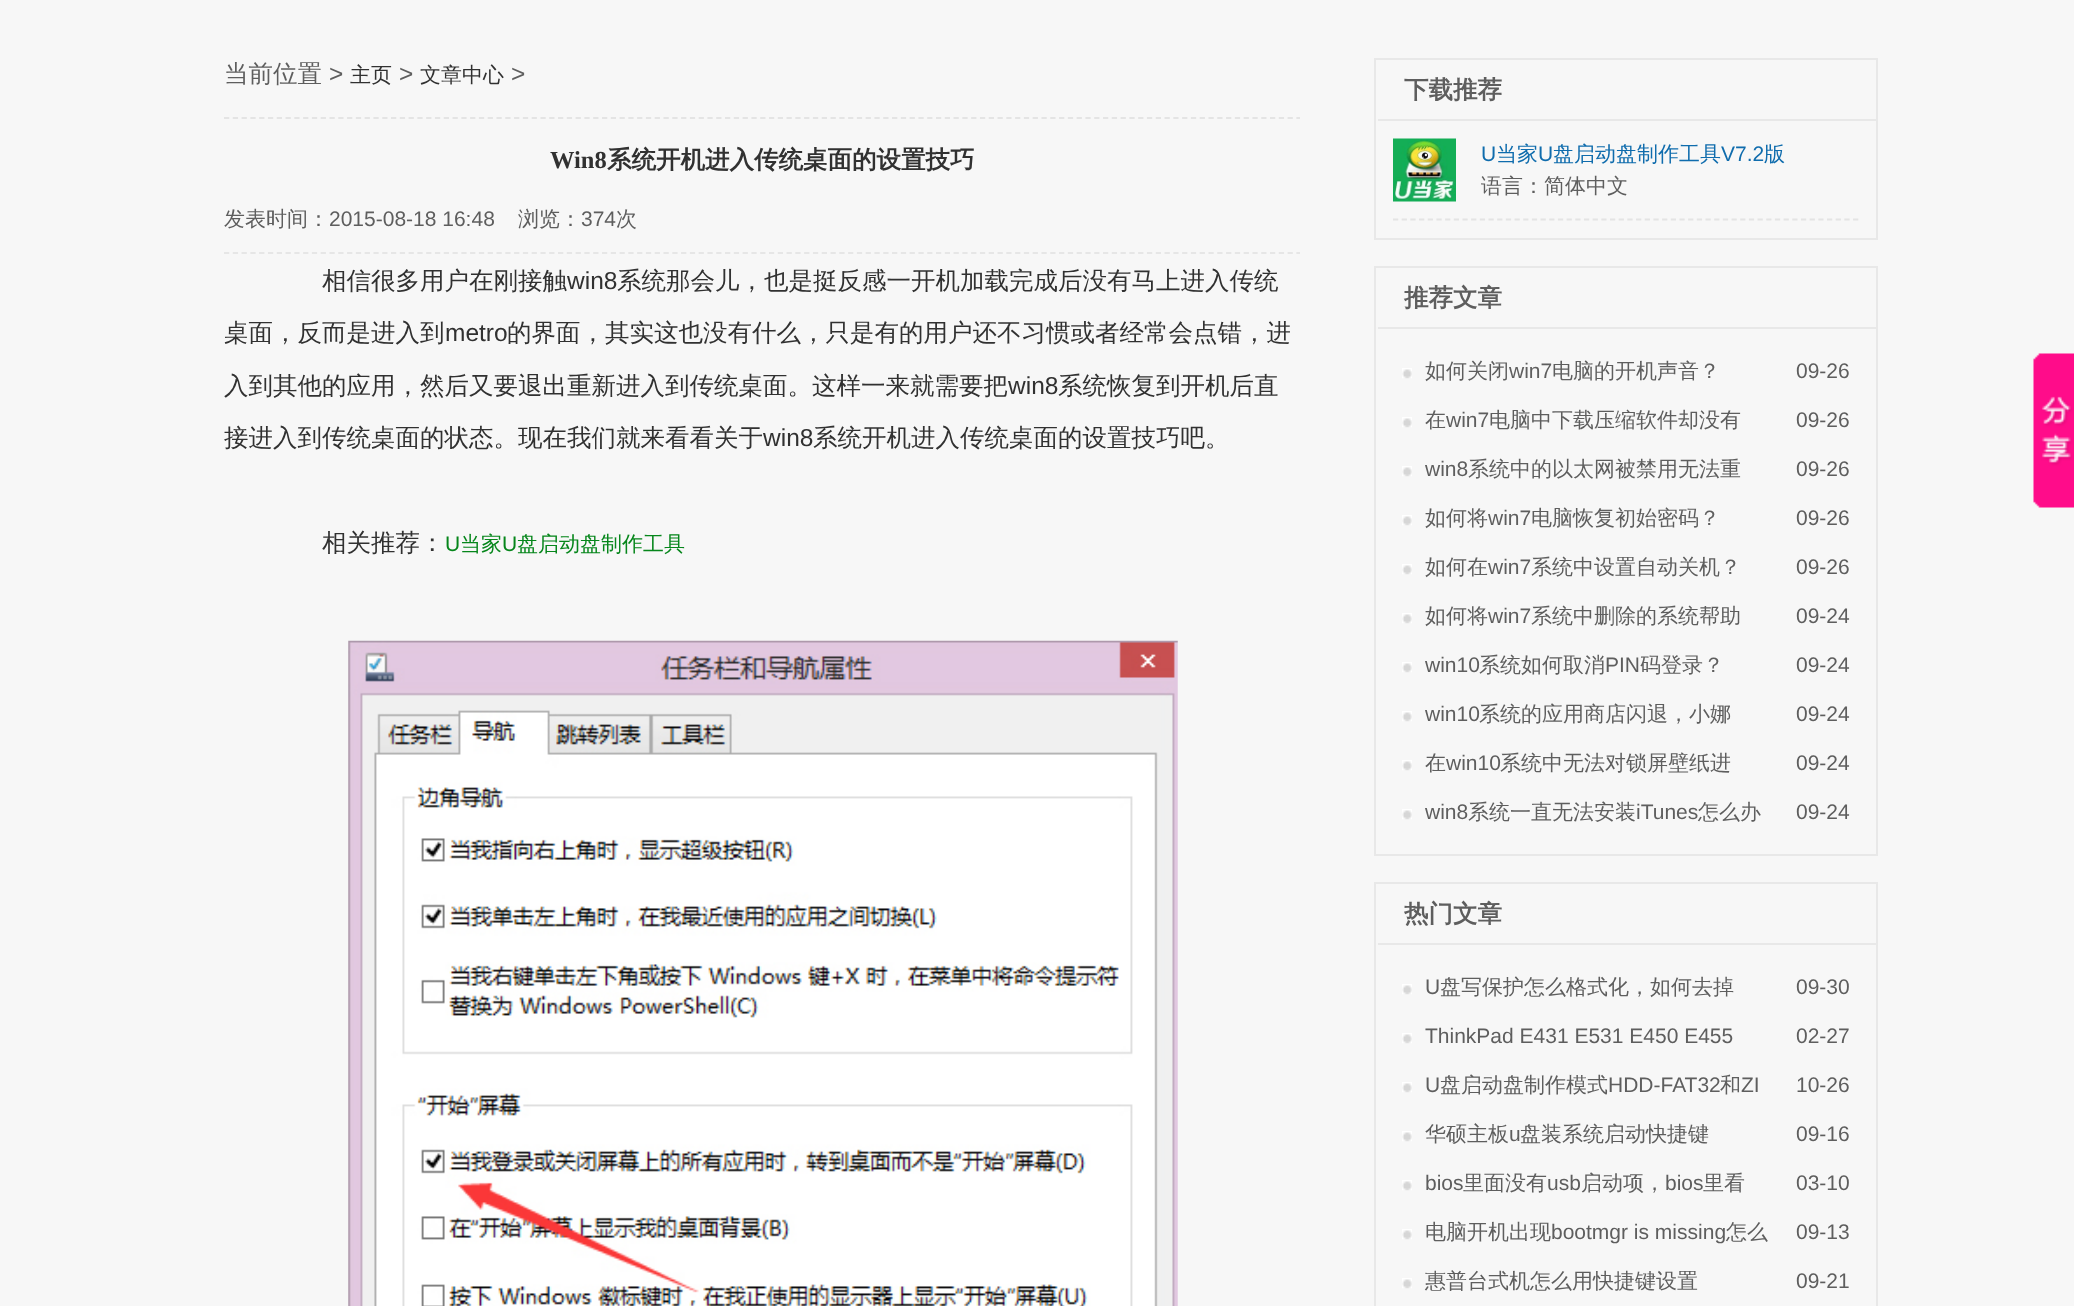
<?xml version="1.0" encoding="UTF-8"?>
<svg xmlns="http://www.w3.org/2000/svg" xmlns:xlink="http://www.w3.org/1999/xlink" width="2074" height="1306">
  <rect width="100%" height="100%" fill="#f7f7f7" />
  <path d="M 224 118 h 1076" fill="none" stroke="#e4e4e4" stroke-width="1.8" stroke-dasharray="5.25 3.54" />
  <path d="M 224 253 h 1076" fill="none" stroke="#e6e6e6" stroke-width="1.8" stroke-dasharray="5.25 3.54" />
  <image x="348" y="640" width="830" height="666" xlink:href="image1.png" />
  <rect x="1375" y="59" width="502" height="180" fill="none" stroke="#e8e8e8" stroke-width="2" />
  <rect x="1376" y="119" width="500" height="2" fill="#e8e8e8" />
  <rect x="1376" y="119" width="2" height="2" fill="#f6f6f6" />
  <path d="M 1393 219.5 h 465.5" fill="none" stroke="#e4e4e4" stroke-width="1.8" stroke-dasharray="5.25 3.43" />
  <image x="1393" y="138" width="63" height="64" xlink:href="image2.png" />
  <rect x="1375" y="267" width="502" height="588" fill="none" stroke="#e8e8e8" stroke-width="2" />
  <rect x="1376" y="327" width="500" height="2" fill="#e8e8e8" />
  <rect x="1376" y="327" width="2" height="2" fill="#f6f6f6" />
  <image x="1402" y="368" width="10" height="11" xlink:href="image3.png" />
  <image x="1402" y="417" width="10" height="11" xlink:href="image3.png" />
  <image x="1402" y="466" width="10" height="11" xlink:href="image3.png" />
  <image x="1402" y="515" width="10" height="11" xlink:href="image3.png" />
  <image x="1402" y="564" width="10" height="11" xlink:href="image3.png" />
  <image x="1402" y="613" width="10" height="11" xlink:href="image3.png" />
  <image x="1402" y="662" width="10" height="11" xlink:href="image3.png" />
  <image x="1402" y="711" width="10" height="11" xlink:href="image3.png" />
  <image x="1402" y="760" width="10" height="11" xlink:href="image3.png" />
  <image x="1402" y="809" width="10" height="11" xlink:href="image3.png" />
  <rect x="1375" y="883" width="502" height="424" fill="none" stroke="#e8e8e8" stroke-width="2" />
  <rect x="1376" y="943" width="500" height="2" fill="#e8e8e8" />
  <rect x="1376" y="943" width="2" height="2" fill="#f6f6f6" />
  <image x="1402" y="984" width="10" height="11" xlink:href="image3.png" />
  <image x="1402" y="1033" width="10" height="11" xlink:href="image3.png" />
  <image x="1402" y="1082" width="10" height="11" xlink:href="image3.png" />
  <image x="1402" y="1131" width="10" height="11" xlink:href="image3.png" />
  <image x="1402" y="1180" width="10" height="11" xlink:href="image3.png" />
  <image x="1402" y="1229" width="10" height="11" xlink:href="image3.png" />
  <image x="1402" y="1278" width="10" height="11" xlink:href="image3.png" />
  <image x="2033" y="353" width="41" height="155" xlink:href="image4.png" />
  <text x="224" y="82" style="font-family: WenQuanYi Zen Hei; font-size: 24.5px; font-weight: 500; fill: #5e5e5e">当前位置</text>
  <text x="329" y="82" style="font-family: Liberation Sans; font-size: 24.5px; fill: #5e5e5e">&gt;</text>
  <text x="350" y="82" style="font-family: WenQuanYi Zen Hei; font-size: 21px; font-weight: 500; fill: #313131">主页</text>
  <text x="399" y="82" style="font-family: Liberation Sans; font-size: 24.5px; fill: #5e5e5e">&gt;</text>
  <text x="420" y="82" style="font-family: WenQuanYi Zen Hei; font-size: 21px; font-weight: 500; fill: #313131">文章中心</text>
  <text x="511" y="82" style="font-family: Liberation Sans; font-size: 24.5px; fill: #5e5e5e">&gt;</text>
  <text x="550" y="168" style="font-family: Liberation Serif; font-size: 24.5px; font-weight: bold; fill: #313131">Win8</text>
  <text x="607" y="168" style="font-family: WenQuanYi Zen Hei; font-size: 24.5px; font-weight: bold; fill: #313131">系统开机进入传统桌面的设置技巧</text>
  <text x="224" y="226" style="font-family: WenQuanYi Zen Hei; font-size: 21px; font-weight: 500; fill: #5e5e5e">发表时间：</text>
  <text x="329" y="226" style="font-family: Liberation Sans; font-size: 21px; fill: #5e5e5e">2015-08-18 16:48</text>
  <text x="518" y="226" style="font-family: WenQuanYi Zen Hei; font-size: 21px; font-weight: 500; fill: #5e5e5e">浏览：</text>
  <text x="581" y="226" style="font-family: Liberation Sans; font-size: 21px; fill: #5e5e5e">374</text>
  <text x="616" y="226" style="font-family: WenQuanYi Zen Hei; font-size: 21px; font-weight: 500; fill: #5e5e5e">次</text>
  <text x="322" y="289" style="font-family: WenQuanYi Zen Hei; font-size: 24.5px; font-weight: 500; fill: #313131">相信很多用户在刚接触</text>
  <text x="567" y="289" style="font-family: Liberation Sans; font-size: 24.5px; fill: #313131">win8</text>
  <text x="617" y="289" style="font-family: WenQuanYi Zen Hei; font-size: 24.5px; font-weight: 500; fill: #313131">系统那会儿，也是挺反感一开机加载完成后没有马上进入传统</text>
  <text x="224" y="341" style="font-family: WenQuanYi Zen Hei; font-size: 24.5px; font-weight: 500; fill: #313131">桌面，反而是进入到</text>
  <text x="445" y="341" style="font-family: Liberation Sans; font-size: 24.5px; fill: #313131">metro</text>
  <text x="507" y="341" style="font-family: WenQuanYi Zen Hei; font-size: 24.5px; font-weight: 500; fill: #313131">的界面，其实这也没有什么，只是有的用户还不习惯或者经常会点错，进</text>
  <text x="224" y="394" style="font-family: WenQuanYi Zen Hei; font-size: 24.5px; font-weight: 500; fill: #313131">入到其他的应用，然后又要退出重新进入到传统桌面。这样一来就需要把</text>
  <text x="1008" y="394" style="font-family: Liberation Sans; font-size: 24.5px; fill: #313131">win8</text>
  <text x="1058" y="394" style="font-family: WenQuanYi Zen Hei; font-size: 24.5px; font-weight: 500; fill: #313131">系统恢复到开机后直</text>
  <text x="224" y="446" style="font-family: WenQuanYi Zen Hei; font-size: 24.5px; font-weight: 500; fill: #313131">接进入到传统桌面的状态。现在我们就来看看关于</text>
  <text x="763" y="446" style="font-family: Liberation Sans; font-size: 24.5px; fill: #313131">win8</text>
  <text x="813" y="446" style="font-family: WenQuanYi Zen Hei; font-size: 24.5px; font-weight: 500; fill: #313131">系统开机进入传统桌面的设置技巧吧。</text>
  <text x="322" y="551" style="font-family: WenQuanYi Zen Hei; font-size: 24.5px; font-weight: 500; fill: #313131">相关推荐：</text>
  <text x="445" y="551" style="font-family: Liberation Sans; font-size: 21px; fill: #06861b">U</text>
  <text x="460" y="551" style="font-family: WenQuanYi Zen Hei; font-size: 21px; font-weight: 500; fill: #06861b">当家</text>
  <text x="502" y="551" style="font-family: Liberation Sans; font-size: 21px; fill: #06861b">U</text>
  <text x="517" y="551" style="font-family: WenQuanYi Zen Hei; font-size: 21px; font-weight: 500; fill: #06861b">盘启动盘制作工具</text>
  <text x="1404" y="98" style="font-family: WenQuanYi Zen Hei; font-size: 24.5px; font-weight: bold; fill: #5e5e5e">下载推荐</text>
  <text x="1481" y="161" style="font-family: Liberation Sans; font-size: 21px; fill: #0f6cad">U</text>
  <text x="1496" y="161" style="font-family: WenQuanYi Zen Hei; font-size: 21px; font-weight: 500; fill: #0f6cad">当家</text>
  <text x="1538" y="161" style="font-family: Liberation Sans; font-size: 21px; fill: #0f6cad">U</text>
  <text x="1553" y="161" style="font-family: WenQuanYi Zen Hei; font-size: 21px; font-weight: 500; fill: #0f6cad">盘启动盘制作工具</text>
  <text x="1721" y="161" style="font-family: Liberation Sans; font-size: 21px; fill: #0f6cad">V7.2</text>
  <text x="1764" y="161" style="font-family: WenQuanYi Zen Hei; font-size: 21px; font-weight: 500; fill: #0f6cad">版</text>
  <text x="1481" y="193" style="font-family: WenQuanYi Zen Hei; font-size: 21px; font-weight: 500; fill: #5e5e5e">语言：简体中文</text>
  <text x="1404" y="306" style="font-family: WenQuanYi Zen Hei; font-size: 24.5px; font-weight: bold; fill: #5e5e5e">推荐文章</text>
  <text x="1425" y="378" style="font-family: WenQuanYi Zen Hei; font-size: 21px; font-weight: 500; fill: #5e5e5e">如何关闭</text>
  <text x="1509" y="378" style="font-family: Liberation Sans; font-size: 21px; fill: #5e5e5e">win7</text>
  <text x="1552" y="378" style="font-family: WenQuanYi Zen Hei; font-size: 21px; font-weight: 500; fill: #5e5e5e">电脑的开机声音？</text>
  <text x="1796" y="378" style="font-family: Liberation Sans; font-size: 21px; fill: #5e5e5e">09-26</text>
  <text x="1425" y="427" style="font-family: WenQuanYi Zen Hei; font-size: 21px; font-weight: 500; fill: #5e5e5e">在</text>
  <text x="1446" y="427" style="font-family: Liberation Sans; font-size: 21px; fill: #5e5e5e">win7</text>
  <text x="1489" y="427" style="font-family: WenQuanYi Zen Hei; font-size: 21px; font-weight: 500; fill: #5e5e5e">电脑中下载压缩软件却没有</text>
  <text x="1796" y="427" style="font-family: Liberation Sans; font-size: 21px; fill: #5e5e5e">09-26</text>
  <text x="1425" y="476" style="font-family: Liberation Sans; font-size: 21px; fill: #5e5e5e">win8</text>
  <text x="1468" y="476" style="font-family: WenQuanYi Zen Hei; font-size: 21px; font-weight: 500; fill: #5e5e5e">系统中的以太网被禁用无法重</text>
  <text x="1796" y="476" style="font-family: Liberation Sans; font-size: 21px; fill: #5e5e5e">09-26</text>
  <text x="1425" y="525" style="font-family: WenQuanYi Zen Hei; font-size: 21px; font-weight: 500; fill: #5e5e5e">如何将</text>
  <text x="1488" y="525" style="font-family: Liberation Sans; font-size: 21px; fill: #5e5e5e">win7</text>
  <text x="1531" y="525" style="font-family: WenQuanYi Zen Hei; font-size: 21px; font-weight: 500; fill: #5e5e5e">电脑恢复初始密码？</text>
  <text x="1796" y="525" style="font-family: Liberation Sans; font-size: 21px; fill: #5e5e5e">09-26</text>
  <text x="1425" y="574" style="font-family: WenQuanYi Zen Hei; font-size: 21px; font-weight: 500; fill: #5e5e5e">如何在</text>
  <text x="1488" y="574" style="font-family: Liberation Sans; font-size: 21px; fill: #5e5e5e">win7</text>
  <text x="1531" y="574" style="font-family: WenQuanYi Zen Hei; font-size: 21px; font-weight: 500; fill: #5e5e5e">系统中设置自动关机？</text>
  <text x="1796" y="574" style="font-family: Liberation Sans; font-size: 21px; fill: #5e5e5e">09-26</text>
  <text x="1425" y="623" style="font-family: WenQuanYi Zen Hei; font-size: 21px; font-weight: 500; fill: #5e5e5e">如何将</text>
  <text x="1488" y="623" style="font-family: Liberation Sans; font-size: 21px; fill: #5e5e5e">win7</text>
  <text x="1531" y="623" style="font-family: WenQuanYi Zen Hei; font-size: 21px; font-weight: 500; fill: #5e5e5e">系统中删除的系统帮助</text>
  <text x="1796" y="623" style="font-family: Liberation Sans; font-size: 21px; fill: #5e5e5e">09-24</text>
  <text x="1425" y="672" style="font-family: Liberation Sans; font-size: 21px; fill: #5e5e5e">win10</text>
  <text x="1479" y="672" style="font-family: WenQuanYi Zen Hei; font-size: 21px; font-weight: 500; fill: #5e5e5e">系统如何取消</text>
  <text x="1605" y="672" style="font-family: Liberation Sans; font-size: 21px; fill: #5e5e5e">PIN</text>
  <text x="1640" y="672" style="font-family: WenQuanYi Zen Hei; font-size: 21px; font-weight: 500; fill: #5e5e5e">码登录？</text>
  <text x="1796" y="672" style="font-family: Liberation Sans; font-size: 21px; fill: #5e5e5e">09-24</text>
  <text x="1425" y="721" style="font-family: Liberation Sans; font-size: 21px; fill: #5e5e5e">win10</text>
  <text x="1479" y="721" style="font-family: WenQuanYi Zen Hei; font-size: 21px; font-weight: 500; fill: #5e5e5e">系统的应用商店闪退，小娜</text>
  <text x="1796" y="721" style="font-family: Liberation Sans; font-size: 21px; fill: #5e5e5e">09-24</text>
  <text x="1425" y="770" style="font-family: WenQuanYi Zen Hei; font-size: 21px; font-weight: 500; fill: #5e5e5e">在</text>
  <text x="1446" y="770" style="font-family: Liberation Sans; font-size: 21px; fill: #5e5e5e">win10</text>
  <text x="1500" y="770" style="font-family: WenQuanYi Zen Hei; font-size: 21px; font-weight: 500; fill: #5e5e5e">系统中无法对锁屏壁纸进</text>
  <text x="1796" y="770" style="font-family: Liberation Sans; font-size: 21px; fill: #5e5e5e">09-24</text>
  <text x="1425" y="819" style="font-family: Liberation Sans; font-size: 21px; fill: #5e5e5e">win8</text>
  <text x="1468" y="819" style="font-family: WenQuanYi Zen Hei; font-size: 21px; font-weight: 500; fill: #5e5e5e">系统一直无法安装</text>
  <text x="1636" y="819" style="font-family: Liberation Sans; font-size: 21px; fill: #5e5e5e">iTunes</text>
  <text x="1698" y="819" style="font-family: WenQuanYi Zen Hei; font-size: 21px; font-weight: 500; fill: #5e5e5e">怎么办</text>
  <text x="1796" y="819" style="font-family: Liberation Sans; font-size: 21px; fill: #5e5e5e">09-24</text>
  <text x="1404" y="922" style="font-family: WenQuanYi Zen Hei; font-size: 24.5px; font-weight: bold; fill: #5e5e5e">热门文章</text>
  <text x="1425" y="994" style="font-family: Liberation Sans; font-size: 21px; fill: #5e5e5e">U</text>
  <text x="1440" y="994" style="font-family: WenQuanYi Zen Hei; font-size: 21px; font-weight: 500; fill: #5e5e5e">盘写保护怎么格式化，如何去掉</text>
  <text x="1796" y="994" style="font-family: Liberation Sans; font-size: 21px; fill: #5e5e5e">09-30</text>
  <text x="1425" y="1043" style="font-family: Liberation Sans; font-size: 21px; fill: #5e5e5e">ThinkPad E431 E531 E450 E455</text>
  <text x="1796" y="1043" style="font-family: Liberation Sans; font-size: 21px; fill: #5e5e5e">02-27</text>
  <text x="1425" y="1092" style="font-family: Liberation Sans; font-size: 21px; fill: #5e5e5e">U</text>
  <text x="1440" y="1092" style="font-family: WenQuanYi Zen Hei; font-size: 21px; font-weight: 500; fill: #5e5e5e">盘启动盘制作模式</text>
  <text x="1608" y="1092" style="font-family: Liberation Sans; font-size: 21px; fill: #5e5e5e">HDD-FAT32</text>
  <text x="1720" y="1092" style="font-family: WenQuanYi Zen Hei; font-size: 21px; font-weight: 500; fill: #5e5e5e">和</text>
  <text x="1741" y="1092" style="font-family: Liberation Sans; font-size: 21px; fill: #5e5e5e">ZI</text>
  <text x="1796" y="1092" style="font-family: Liberation Sans; font-size: 21px; fill: #5e5e5e">10-26</text>
  <text x="1425" y="1141" style="font-family: WenQuanYi Zen Hei; font-size: 21px; font-weight: 500; fill: #5e5e5e">华硕主板</text>
  <text x="1509" y="1141" style="font-family: Liberation Sans; font-size: 21px; fill: #5e5e5e">u</text>
  <text x="1520" y="1141" style="font-family: WenQuanYi Zen Hei; font-size: 21px; font-weight: 500; fill: #5e5e5e">盘装系统启动快捷键</text>
  <text x="1796" y="1141" style="font-family: Liberation Sans; font-size: 21px; fill: #5e5e5e">09-16</text>
  <text x="1425" y="1190" style="font-family: Liberation Sans; font-size: 21px; fill: #5e5e5e">bios</text>
  <text x="1463" y="1190" style="font-family: WenQuanYi Zen Hei; font-size: 21px; font-weight: 500; fill: #5e5e5e">里面没有</text>
  <text x="1547" y="1190" style="font-family: Liberation Sans; font-size: 21px; fill: #5e5e5e">usb</text>
  <text x="1581" y="1190" style="font-family: WenQuanYi Zen Hei; font-size: 21px; font-weight: 500; fill: #5e5e5e">启动项，</text>
  <text x="1665" y="1190" style="font-family: Liberation Sans; font-size: 21px; fill: #5e5e5e">bios</text>
  <text x="1703" y="1190" style="font-family: WenQuanYi Zen Hei; font-size: 21px; font-weight: 500; fill: #5e5e5e">里看</text>
  <text x="1796" y="1190" style="font-family: Liberation Sans; font-size: 21px; fill: #5e5e5e">03-10</text>
  <text x="1425" y="1239" style="font-family: WenQuanYi Zen Hei; font-size: 21px; font-weight: 500; fill: #5e5e5e">电脑开机出现</text>
  <text x="1551" y="1239" style="font-family: Liberation Sans; font-size: 21px; fill: #5e5e5e">bootmgr is missing</text>
  <text x="1726" y="1239" style="font-family: WenQuanYi Zen Hei; font-size: 21px; font-weight: 500; fill: #5e5e5e">怎么</text>
  <text x="1796" y="1239" style="font-family: Liberation Sans; font-size: 21px; fill: #5e5e5e">09-13</text>
  <text x="1425" y="1288" style="font-family: WenQuanYi Zen Hei; font-size: 21px; font-weight: 500; fill: #5e5e5e">惠普台式机怎么用快捷键设置</text>
  <text x="1796" y="1288" style="font-family: Liberation Sans; font-size: 21px; fill: #5e5e5e">09-21</text>
</svg>
